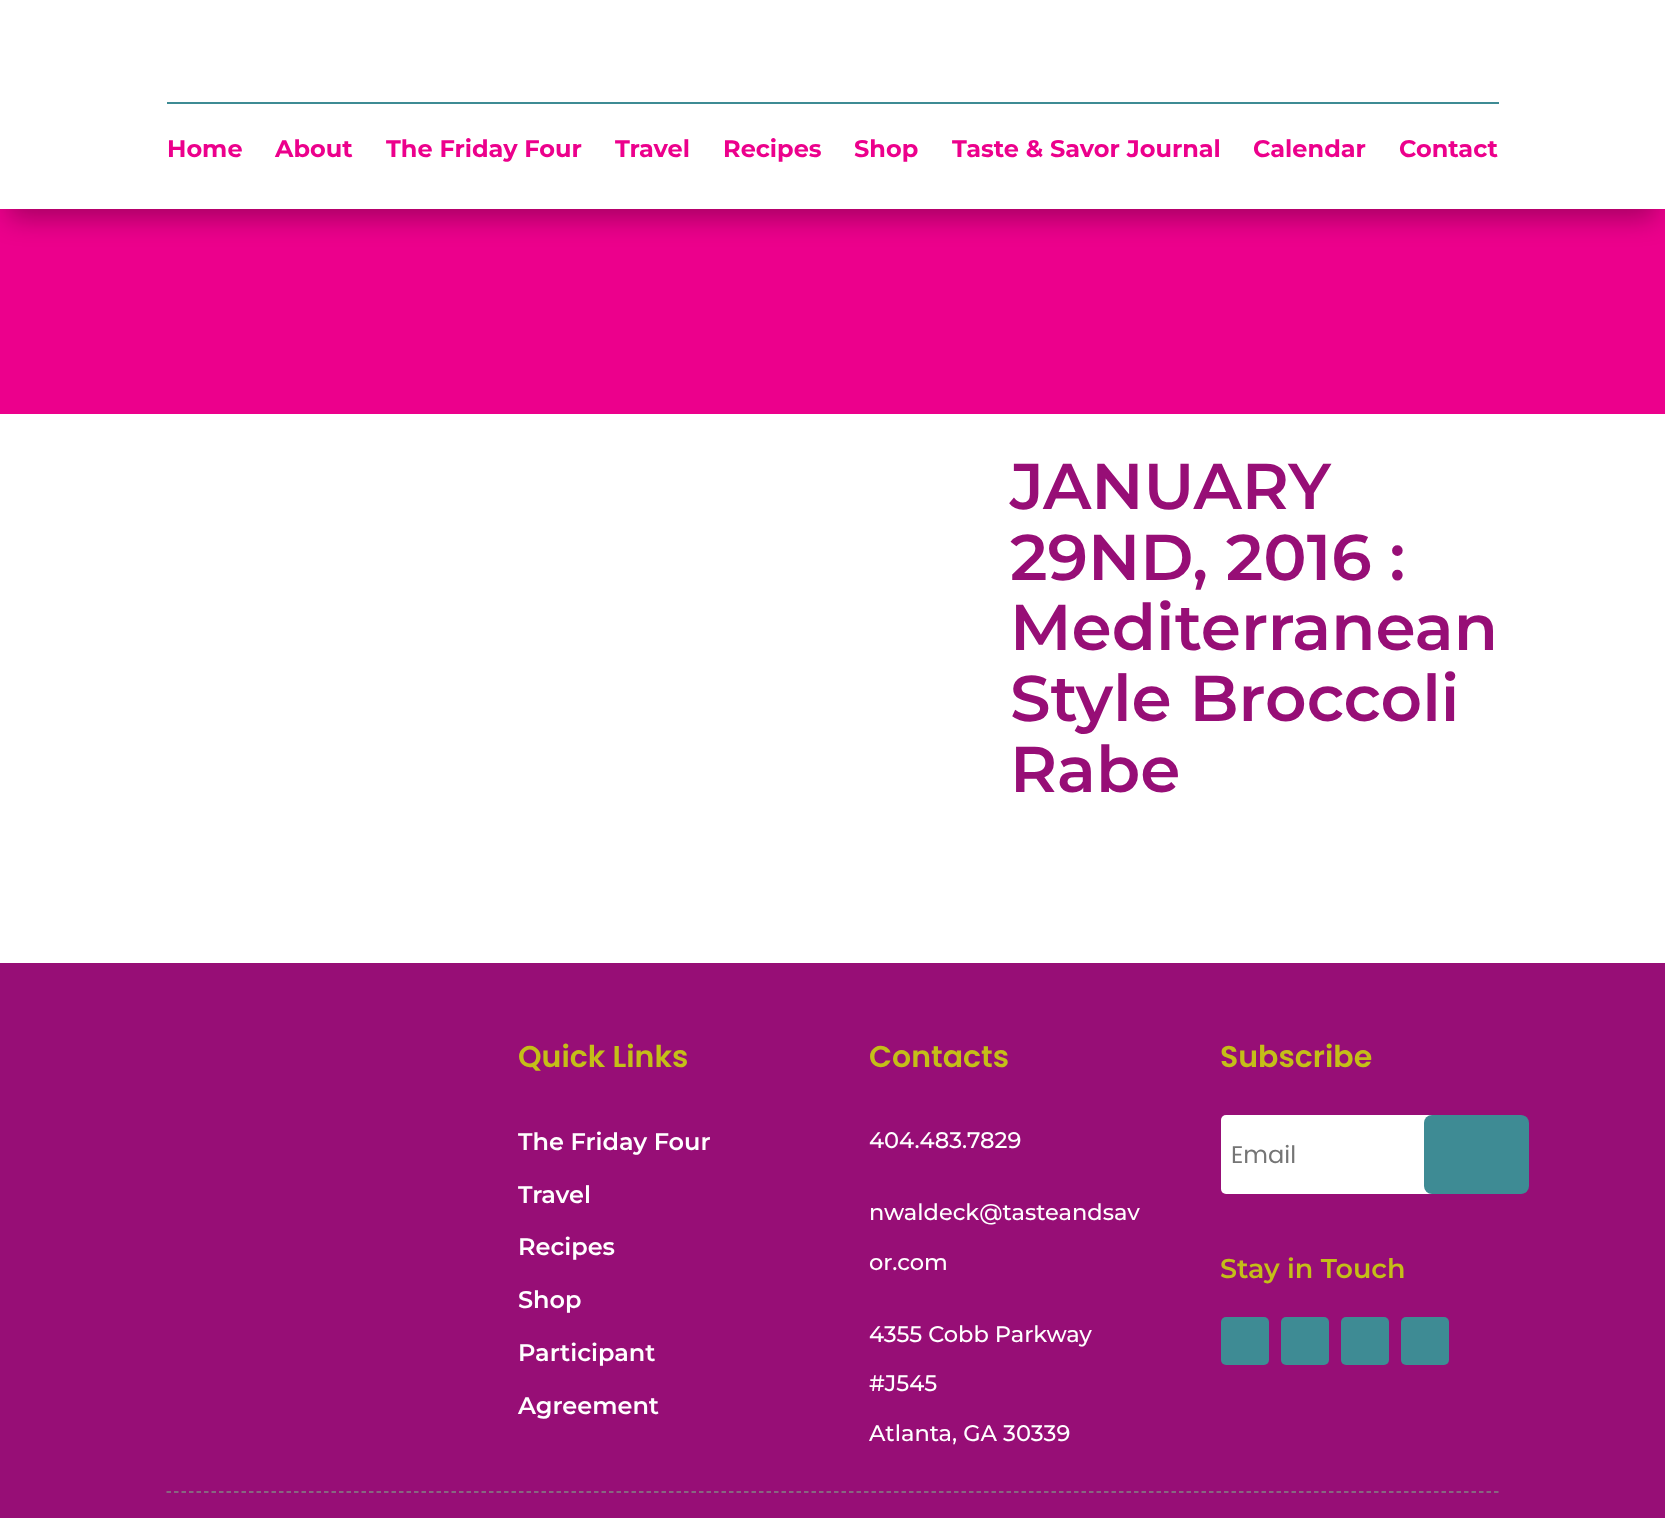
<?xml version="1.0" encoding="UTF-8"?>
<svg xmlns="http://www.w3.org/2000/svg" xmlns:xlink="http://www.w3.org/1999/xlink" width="1665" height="1518">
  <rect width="100%" height="100%" fill="#ffffff" />
  <rect y="209" width="1665" height="205" fill="#ec008c" />
  <rect x="9" y="-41" width="1647" height="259" fill="#000000" fill-opacity="0.3" filter="blur(13.5px)" />
  <rect width="1665" height="209" fill="#ffffff" />
  <rect x="167" y="102" width="1332" height="2" fill="#3e8b94" />
  <rect y="963" width="1665" height="555" fill="#970e76" />
  <path d="M 166.5 1492 h 1332" fill="none" stroke="#848484" stroke-width="1.5" stroke-dasharray="4.5 3" />
  <rect x="1221" y="1115" width="278" height="79" rx="5" fill="#ffffff" />
  <rect x="1424" y="1115" width="105" height="79" rx="8" fill="#3e8b94" />
  <rect x="1221" y="1317" width="48" height="48" rx="5" fill="#3e8b94" />
  <rect x="1281" y="1317" width="48" height="48" rx="5" fill="#3e8b94" />
  <rect x="1341" y="1317" width="48" height="48" rx="5" fill="#3e8b94" />
  <rect x="1401" y="1317" width="48" height="48" rx="5" fill="#3e8b94" />
  <text x="167" y="157" style="font-family: Montserrat; font-size: 24px; font-weight: bold; fill: #ec008c">Home</text>
  <text x="275" y="157" style="font-family: Montserrat; font-size: 24px; font-weight: bold; fill: #ec008c">About</text>
  <text x="386" y="157" style="font-family: Montserrat; font-size: 24px; font-weight: bold; fill: #ec008c">The Friday Four</text>
  <text x="615" y="157" style="font-family: Montserrat; font-size: 24px; font-weight: bold; fill: #ec008c">Travel</text>
  <text x="723" y="157" style="font-family: Montserrat; font-size: 24px; font-weight: bold; fill: #ec008c">Recipes</text>
  <text x="854" y="157" style="font-family: Montserrat; font-size: 24px; font-weight: bold; fill: #ec008c">Shop</text>
  <text x="952" y="157" style="font-family: Montserrat; font-size: 24px; font-weight: bold; fill: #ec008c">Taste &amp; Savor Journal</text>
  <text x="1253" y="157" style="font-family: Montserrat; font-size: 24px; font-weight: bold; fill: #ec008c">Calendar</text>
  <text x="1399" y="157" style="font-family: Montserrat; font-size: 24px; font-weight: bold; fill: #ec008c">Contact</text>
  <text x="1010" y="509" style="font-family: Montserrat; font-size: 64.5px; font-weight: 600; fill: #970e76">JANUARY</text>
  <text x="1010" y="580" style="font-family: Montserrat; font-size: 64.5px; font-weight: 600; fill: #970e76">29ND, 2016 :</text>
  <text x="1010" y="650" style="font-family: Montserrat; font-size: 64.5px; font-weight: 600; fill: #970e76">Mediterranean</text>
  <text x="1010" y="721" style="font-family: Montserrat; font-size: 64.5px; font-weight: 600; fill: #970e76">Style Broccoli</text>
  <text x="1010" y="792" style="font-family: Montserrat; font-size: 64.5px; font-weight: 600; fill: #970e76">Rabe</text>
  <text x="518" y="1067" style="font-family: Poppins; font-size: 30px; font-weight: 600; fill: #c4be18">Quick Links</text>
  <text x="518" y="1150" style="font-family: Montserrat; font-size: 24px; font-weight: 600; fill: #ffffff">The Friday Four</text>
  <text x="518" y="1203" style="font-family: Montserrat; font-size: 24px; font-weight: 600; fill: #ffffff">Travel</text>
  <text x="518" y="1255" style="font-family: Montserrat; font-size: 24px; font-weight: 600; fill: #ffffff">Recipes</text>
  <text x="518" y="1308" style="font-family: Montserrat; font-size: 24px; font-weight: 600; fill: #ffffff">Shop</text>
  <text x="518" y="1361" style="font-family: Montserrat; font-size: 24px; font-weight: 600; fill: #ffffff">Participant</text>
  <text x="518" y="1414" style="font-family: Montserrat; font-size: 24px; font-weight: 600; fill: #ffffff">Agreement</text>
  <text x="869" y="1067" style="font-family: Poppins; font-size: 30px; font-weight: 600; fill: #c4be18">Contacts</text>
  <text x="869" y="1148" style="font-family: Montserrat; font-size: 22.5px; font-weight: 500; fill: #ffffff">404.483.7829</text>
  <text x="869" y="1220" style="font-family: Montserrat; font-size: 22.5px; font-weight: 500; fill: #ffffff">nwaldeck@tasteandsav</text>
  <text x="869" y="1270" style="font-family: Montserrat; font-size: 22.5px; font-weight: 500; fill: #ffffff">or.com</text>
  <text x="869" y="1342" style="font-family: Montserrat; font-size: 22.5px; font-weight: 500; fill: #ffffff">4355 Cobb Parkway</text>
  <text x="869" y="1391" style="font-family: Montserrat; font-size: 22.5px; font-weight: 500; fill: #ffffff">#J545</text>
  <text x="869" y="1441" style="font-family: Montserrat; font-size: 22.5px; font-weight: 500; fill: #ffffff">Atlanta, GA 30339</text>
  <text x="1220" y="1067" style="font-family: Poppins; font-size: 30px; font-weight: 600; fill: #c4be18">Subscribe</text>
  <text x="1231" y="1163" style="font-family: Poppins; font-size: 24px; fill: #757575">Email</text>
  <text x="1220" y="1278" style="font-family: Montserrat; font-size: 27px; font-weight: 600; fill: #c4be18">Stay in Touch</text>
</svg>
